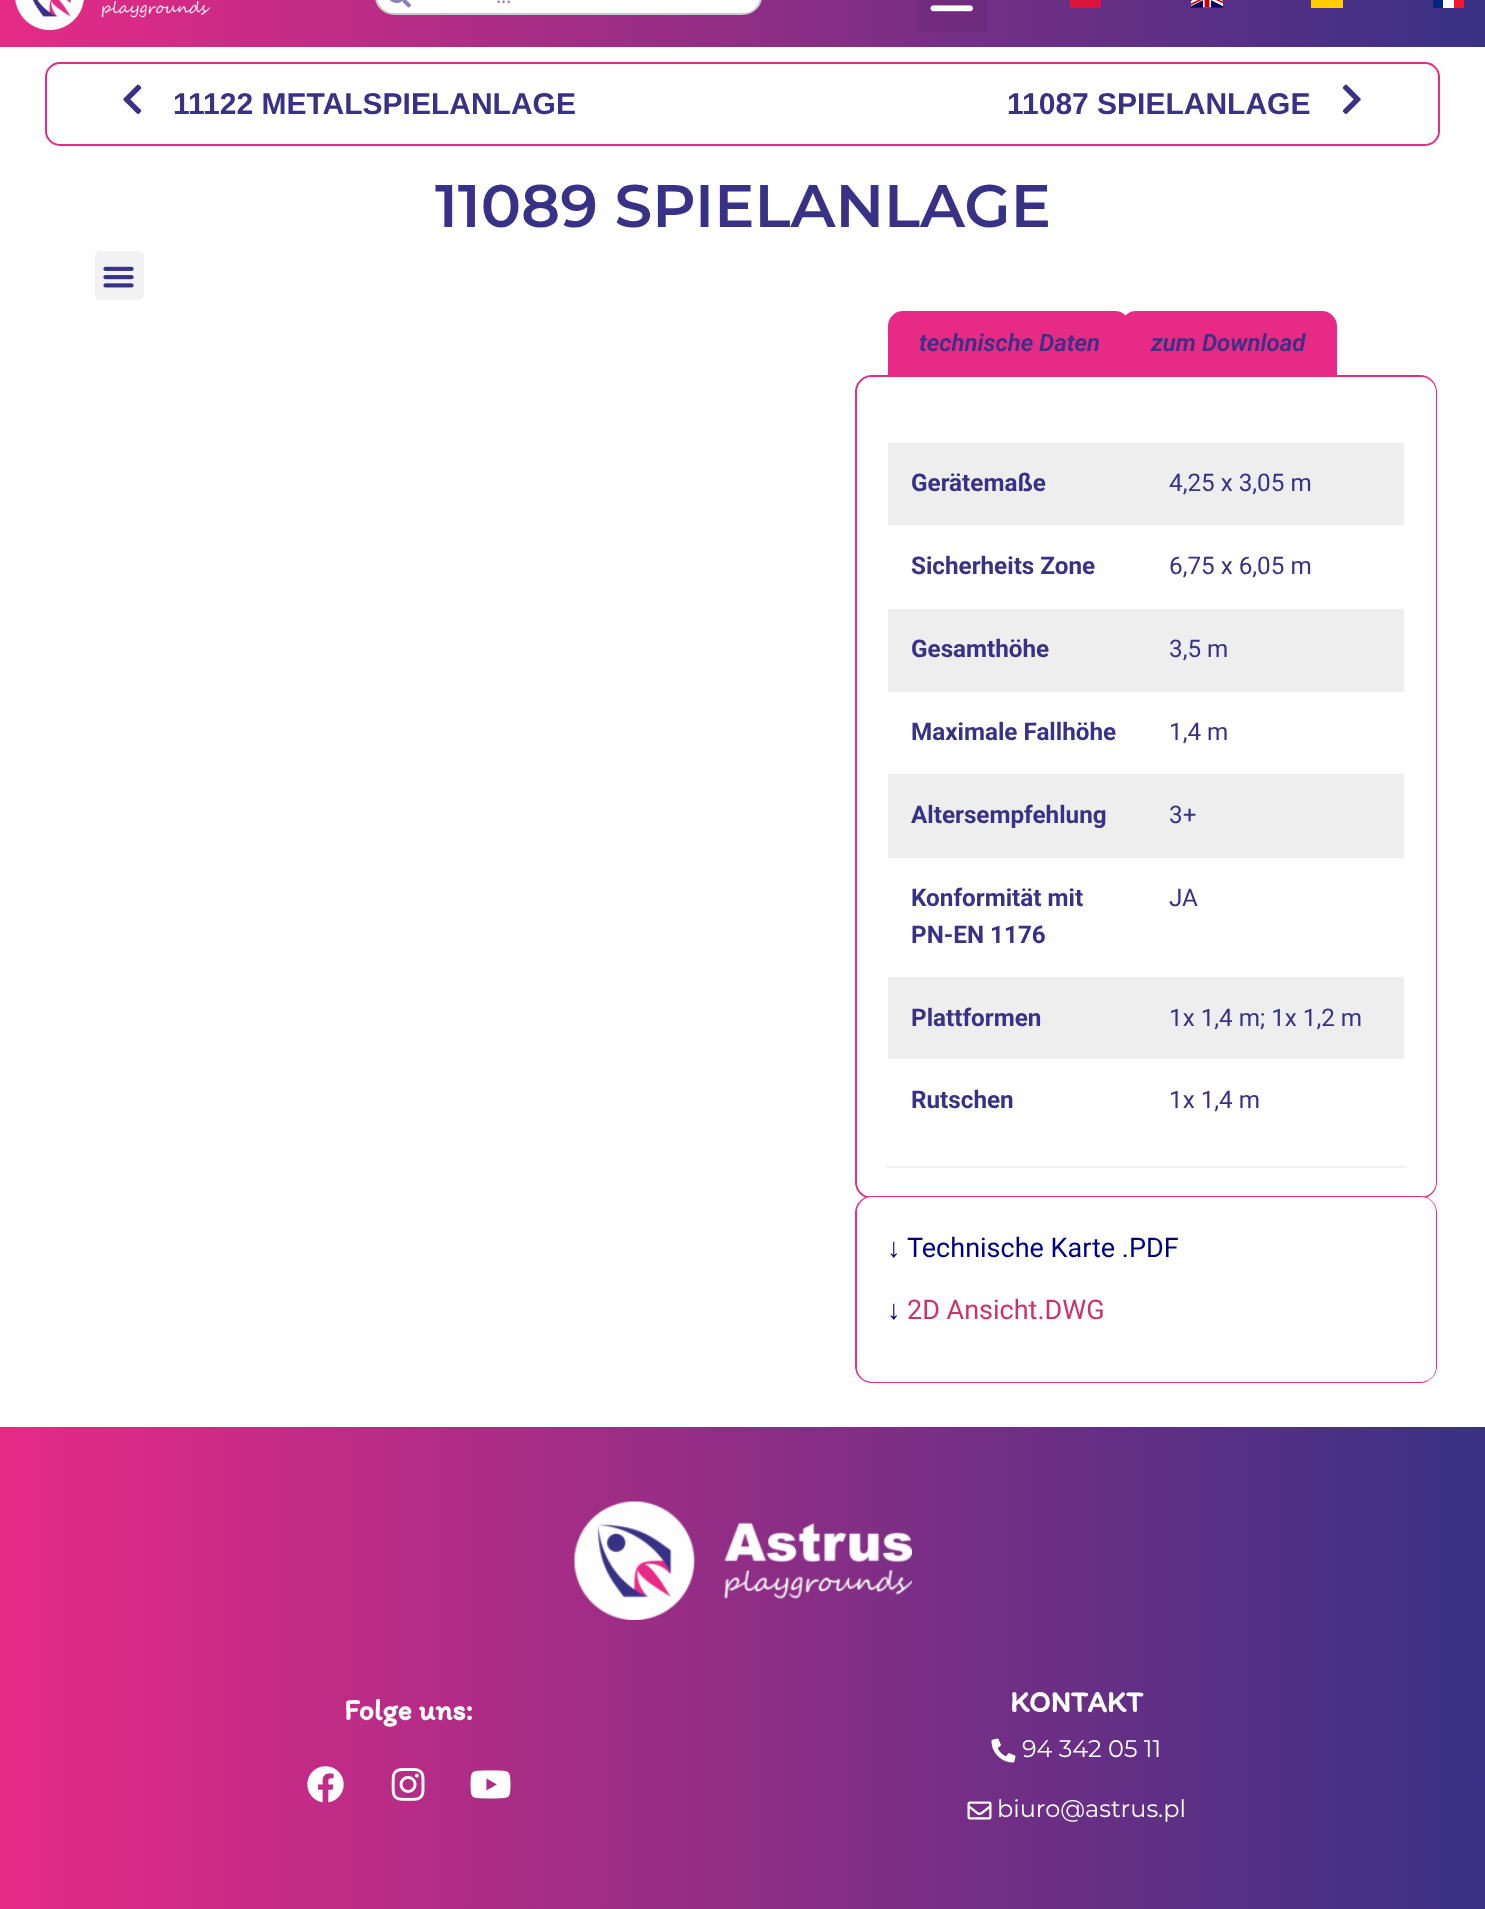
<?xml version="1.0" encoding="UTF-8"?>
<svg xmlns="http://www.w3.org/2000/svg" xmlns:xlink="http://www.w3.org/1999/xlink" width="1485" height="1909">
  <defs>
    <linearGradient id="g1" gradientUnits="userSpaceOnUse" x1="0" y1="-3.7" x2="1485" y2="-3.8"><stop offset="0" stop-color="#e62a86" /><stop offset="1" stop-color="#393185" /></linearGradient>
    <linearGradient id="g2" gradientUnits="userSpaceOnUse" x1="0" y1="1763" x2="1485" y2="1763"><stop offset="0" stop-color="#e62a86" /><stop offset="1" stop-color="#393185" /></linearGradient>
  </defs>
  <rect width="100%" height="100%" fill="#ffffff" />
  <rect width="1485" height="47" fill="url(#g1)" />
  <image x="15" y="0" width="195" height="30" xlink:href="image1.png" />
  <rect x="376" y="-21" width="385" height="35" rx="18.5" fill="#ffffff" stroke="#c9c9c9" stroke-width="2" />
  <image x="390" y="0" width="21" height="8" xlink:href="image2.png" />
  <rect x="917" width="70" height="32" fill="#000000" fill-opacity="0.05" />
  <image x="930" y="5" width="43" height="7" xlink:href="image3.png" />
  <rect x="1070" width="31" height="8" fill="#dc143c" />
  <image x="1191" y="0" width="32" height="8" xlink:href="image4.png" />
  <rect x="1311" width="32" height="8" fill="#ffce00" />
  <rect x="1443" width="11" height="8" fill="#ffffff" />
  <rect x="1433" width="10" height="8" fill="#00267f" />
  <rect x="1454" width="10" height="8" fill="#f31830" />
  <rect x="46" y="63" width="1393" height="82" rx="14" fill="none" stroke="#e62a86" stroke-width="2" />
  <image x="123" y="84" width="19" height="30" xlink:href="image5.png" />
  <image x="1342" y="84" width="19" height="30" xlink:href="image6.png" />
  <rect x="95" y="251" width="49" height="49" rx="5" fill="#f2f2f2" />
  <image x="103" y="266" width="31" height="22" xlink:href="image7.png" />
  <rect x="856" y="376" width="580" height="822" rx="16" fill="none" stroke="#e62a86" stroke-width="2" />
  <path d="M 903 312 h 212 c 7.5 0 14 6.5 14 14 v 50 h -240 v -50 c 0 -7.5 6.5 -14 14 -14 z" fill="#e62a86" stroke="#e62a86" stroke-width="2" />
  <path d="M 1136 312 h 186 c 7.5 0 14 6.5 14 14 v 50 h -214 v -50 c 0 -7.5 6.5 -14 14 -14 z" fill="#e62a86" stroke="#e62a86" stroke-width="2" />
  <rect x="857" y="377" width="579" height="820" rx="15" fill="#ffffff" />
  <rect x="887" y="1166" width="519" height="2" fill="#f0f0f0" />
  <rect x="888" y="443" width="516" height="82" fill="#eeeeee" />
  <rect x="888" y="609" width="516" height="83" fill="#eeeeee" />
  <rect x="888" y="774" width="516" height="84" fill="#eeeeee" />
  <rect x="888" y="977" width="516" height="82" fill="#eeeeee" />
  <rect x="856" y="1197" width="580" height="185" rx="16" fill="none" stroke="#e62a86" stroke-width="2" />
  <rect x="857" y="1197" width="579" height="185" rx="15" fill="#ffffff" />
  <rect y="1427" width="1485" height="482" fill="url(#g2)" />
  <image x="574" y="1501" width="338" height="119" xlink:href="image8.png" />
  <image x="307" y="1766" width="37" height="37" xlink:href="image9.png" />
  <image x="391" y="1768" width="34" height="33" xlink:href="image10.png" />
  <image x="470" y="1770" width="41" height="29" xlink:href="image11.png" />
  <image x="991" y="1738" width="25" height="25" xlink:href="image12.png" />
  <image x="967" y="1801" width="25" height="19" xlink:href="image13.png" />
  <text x="496" y="3" style="font-family: Montserrat; font-size: 24px; fill: #8883b6">...</text>
  <text x="173" y="114" style="font-family: Liberation Sans; font-size: 30px; font-weight: bold; fill: #393185">11122 METALSPIELANLAGE</text>
  <text x="1007" y="114" style="font-family: Liberation Sans; font-size: 30px; font-weight: bold; fill: #393185">11087 SPIELANLAGE</text>
  <text x="435" y="227" style="font-family: Montserrat; font-size: 60px; font-weight: 600; fill: #393185">11089 SPIELANLAGE</text>
  <text x="919" y="351" style="font-family: Roboto; font-size: 24px; font-weight: 600; font-style: italic; fill: #393185">technische Daten</text>
  <text x="1151" y="351" style="font-family: Roboto; font-size: 24px; font-weight: 600; font-style: italic; fill: #393185">zum Download</text>
  <text x="911" y="491" style="font-family: Roboto; font-size: 24.25px; font-weight: bold; fill: #393185">Gerätemaße</text>
  <text x="1169" y="491" style="font-family: Roboto; font-size: 24.25px; fill: #393185">4,25 x 3,05 m</text>
  <text x="911" y="574" style="font-family: Roboto; font-size: 24.25px; font-weight: bold; fill: #393185">Sicherheits Zone</text>
  <text x="1169" y="574" style="font-family: Roboto; font-size: 24.25px; fill: #393185">6,75 x 6,05 m</text>
  <text x="911" y="657" style="font-family: Roboto; font-size: 24.25px; font-weight: bold; fill: #393185">Gesamthöhe</text>
  <text x="1169" y="657" style="font-family: Roboto; font-size: 24.25px; fill: #393185">3,5 m</text>
  <text x="911" y="740" style="font-family: Roboto; font-size: 24.25px; font-weight: bold; fill: #393185">Maximale Fallhöhe</text>
  <text x="1169" y="740" style="font-family: Roboto; font-size: 24.25px; fill: #393185">1,4 m</text>
  <text x="911" y="823" style="font-family: Roboto; font-size: 24.25px; font-weight: bold; fill: #393185">Altersempfehlung</text>
  <text x="1169" y="823" style="font-family: Roboto; font-size: 24.25px; fill: #393185">3+</text>
  <text x="911" y="906" style="font-family: Roboto; font-size: 24.25px; font-weight: bold; fill: #393185">Konformität mit</text>
  <text x="911" y="943" style="font-family: Roboto; font-size: 24.25px; font-weight: bold; fill: #393185">PN-EN 1176</text>
  <text x="1169" y="906" style="font-family: Roboto; font-size: 24.25px; fill: #393185">JA</text>
  <text x="911" y="1026" style="font-family: Roboto; font-size: 24.25px; font-weight: bold; fill: #393185">Plattformen</text>
  <text x="1169" y="1026" style="font-family: Roboto; font-size: 24.25px; fill: #393185">1x 1,4 m; 1x 1,2 m</text>
  <text x="911" y="1108" style="font-family: Roboto; font-size: 24.25px; font-weight: bold; fill: #393185">Rutschen</text>
  <text x="1169" y="1108" style="font-family: Roboto; font-size: 24.25px; fill: #393185">1x 1,4 m</text>
  <text x="887" y="1257" style="font-family: Liberation Sans; font-size: 27px; fill: #000080">↓</text>
  <text x="907" y="1257" style="font-family: Roboto; font-size: 27px; fill: #000080">Technische Karte .PDF</text>
  <text x="887" y="1319" style="font-family: Liberation Sans; font-size: 27px; fill: #000080">↓</text>
  <text x="907" y="1319" style="font-family: Roboto; font-size: 27px; fill: #cc3366">2D Ansicht.DWG</text>
  <text x="344" y="1720" style="font-family: Itim; font-size: 30px; font-weight: bold; fill: #ffffff">Folge uns:</text>
  <text x="1010" y="1712" style="font-family: Itim; font-size: 30px; font-weight: bold; fill: #ffffff">KONTAKT</text>
  <text x="1022" y="1757" style="font-family: Montserrat; font-size: 24px; fill: #ffffff">94 342 05 11</text>
  <text x="997" y="1817" style="font-family: Montserrat; font-size: 24px; fill: #ffffff">biuro@astrus.pl</text>
</svg>
